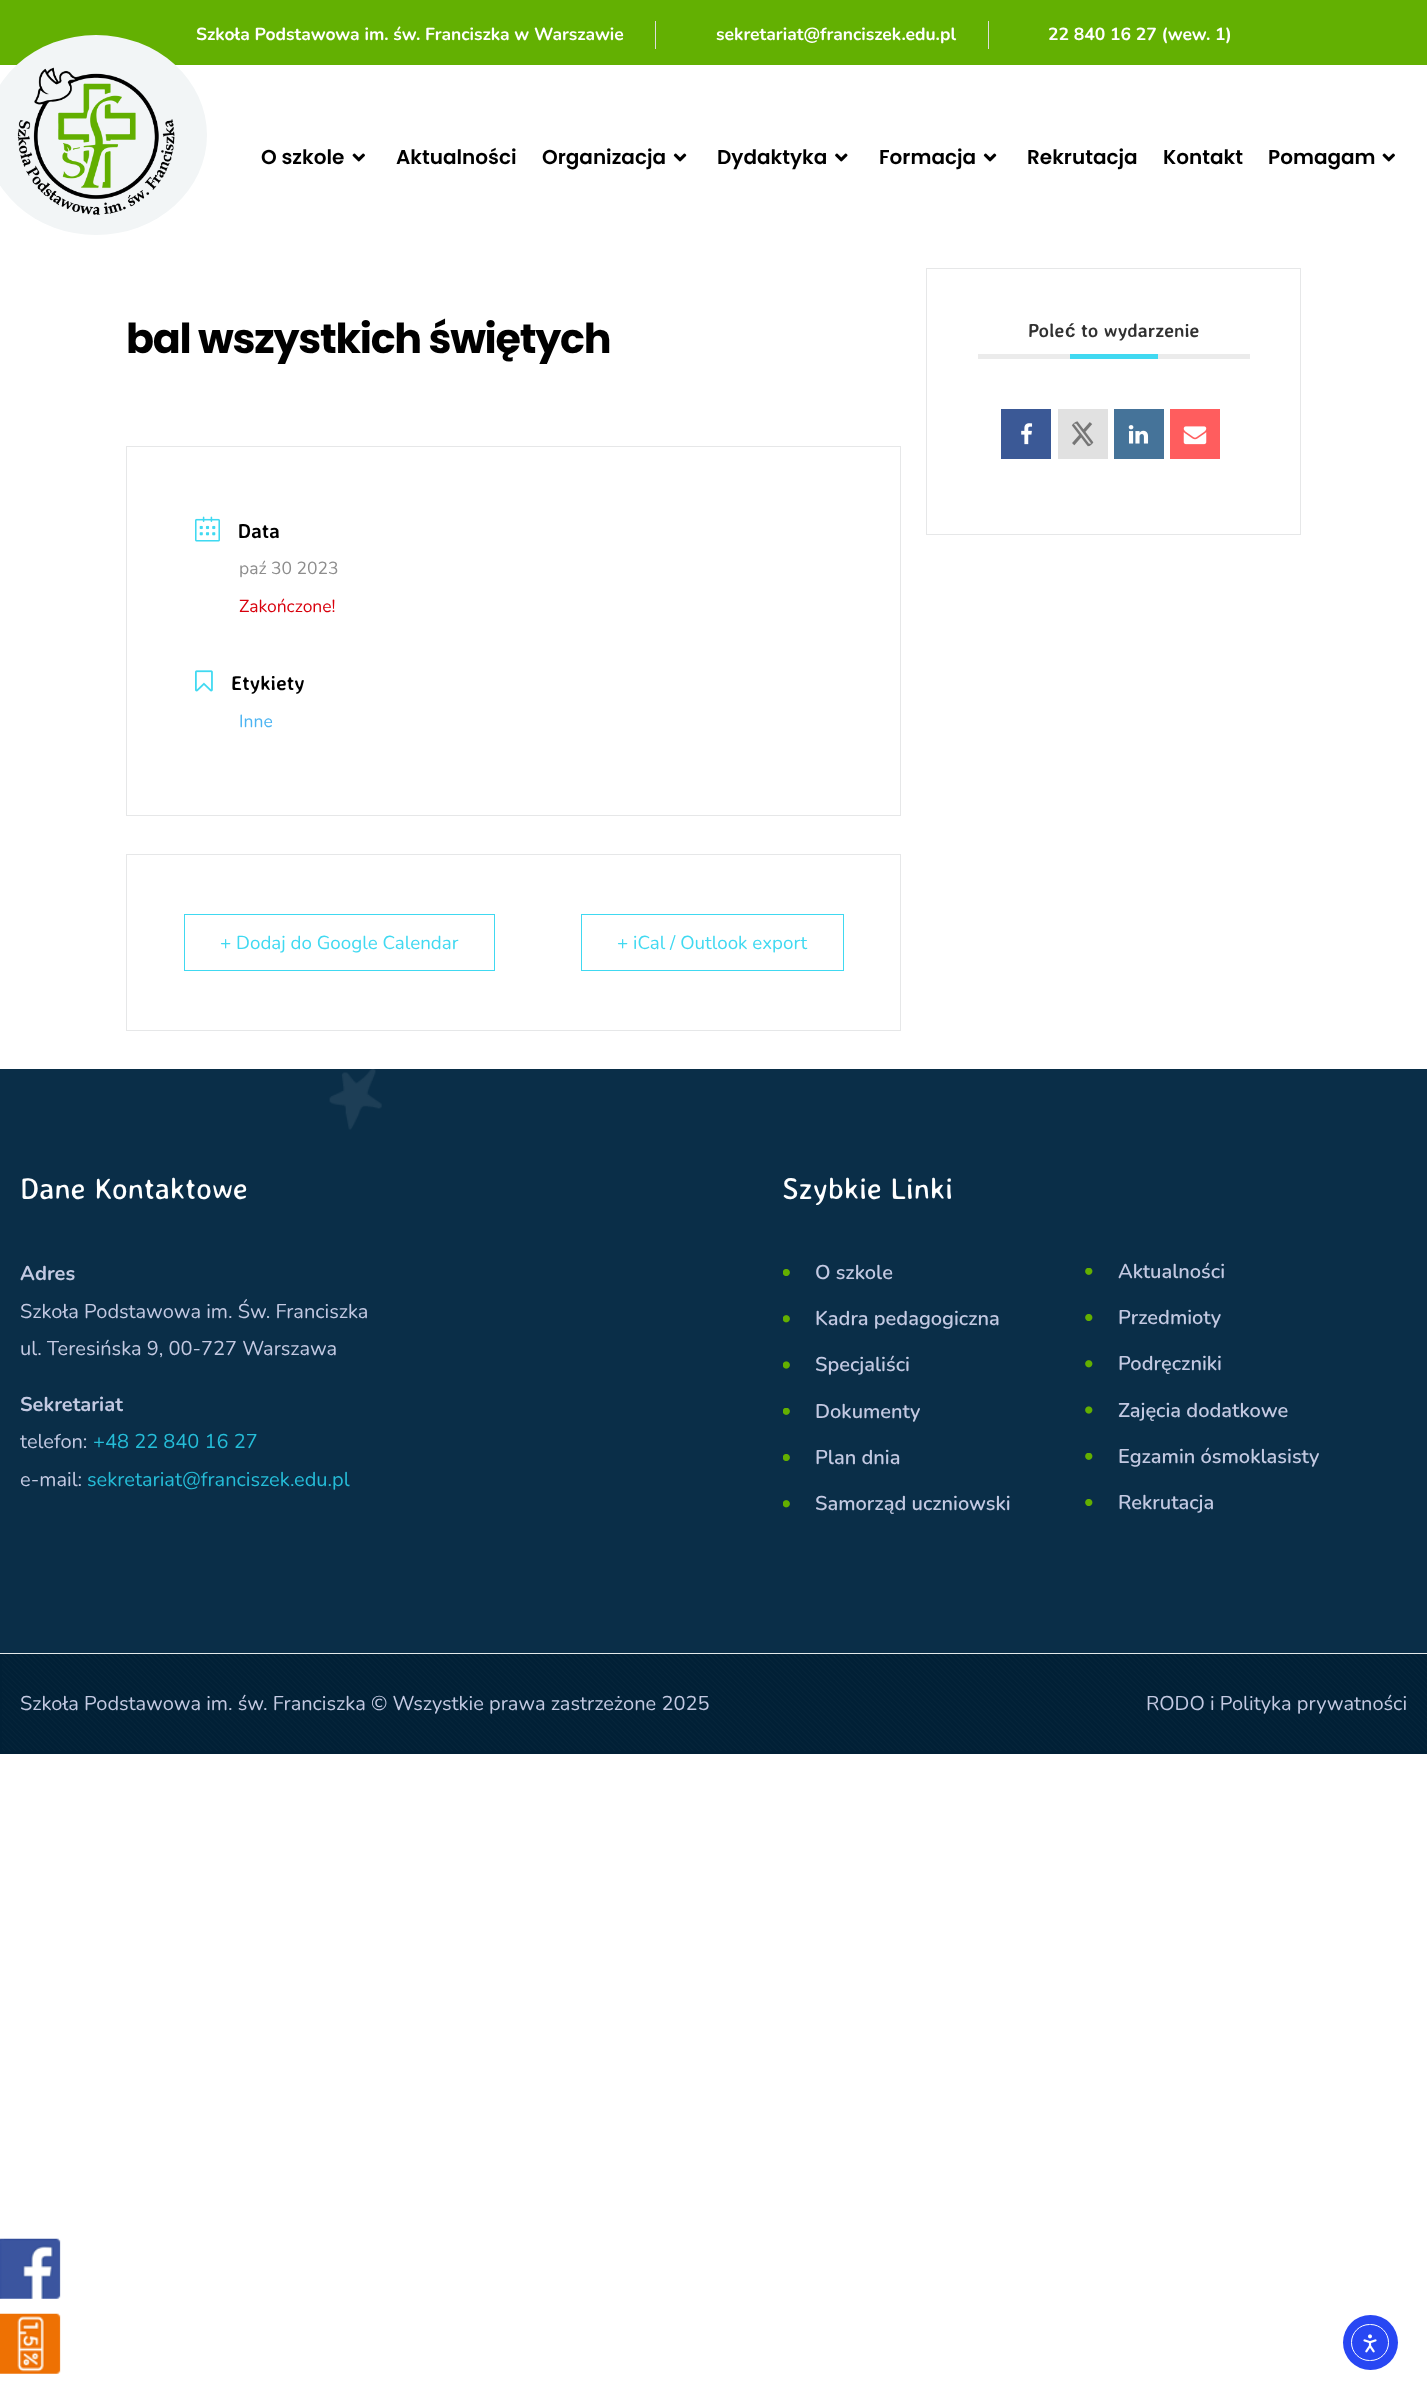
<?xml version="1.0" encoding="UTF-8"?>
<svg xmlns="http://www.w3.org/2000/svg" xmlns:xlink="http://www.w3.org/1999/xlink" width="1427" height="2399">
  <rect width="100%" height="100%" fill="#ffffff" />
  <rect width="1427" height="65" fill="#63b002" />
  <rect x="655" y="21" width="1" height="28" fill="#dddddd" />
  <rect x="988" y="21" width="1" height="28" fill="#dddddd" />
  <image x="352" y="153" width="13" height="9" xlink:href="image2.png" />
  <image x="673" y="153" width="14" height="9" xlink:href="image3.png" />
  <image x="835" y="153" width="13" height="9" xlink:href="image4.png" />
  <image x="983" y="153" width="14" height="9" xlink:href="image3.png" />
  <image x="1382" y="153" width="13" height="9" xlink:href="image2.png" />
  <image x="0" y="2238" width="61" height="61" xlink:href="image5.png" />
  <image x="0" y="2313" width="61" height="61" xlink:href="image6.png" />
  <rect x="126.5" y="446.5" width="774" height="369" fill="none" stroke="#e6e7e8" />
  <image x="195" y="516" width="25" height="26" xlink:href="image7.png" />
  <image x="195" y="670" width="18" height="22" xlink:href="image8.png" />
  <rect x="126.5" y="854.5" width="774" height="176" fill="none" stroke="#e6e7e8" />
  <rect x="184.5" y="914.5" width="310" height="56" fill="none" stroke="#40d9f1" />
  <rect x="581.5" y="914.5" width="262" height="56" fill="none" stroke="#40d9f1" />
  <rect x="926.5" y="268.5" width="374" height="266" fill="none" stroke="#e6e7e8" />
  <rect x="978" y="354" width="272" height="5" fill="#ebebeb" />
  <rect x="1070" y="354" width="88" height="5" fill="#40d9f1" />
  <rect x="1001" y="409" width="50" height="50" fill="#3b5996" />
  <image x="1021" y="423" width="12" height="22" xlink:href="image9.png" />
  <rect x="1058" y="409" width="50" height="50" fill="#e1e1e1" />
  <image x="1071" y="421" width="23" height="26" xlink:href="image10.png" />
  <rect x="1114" y="409" width="50" height="50" fill="#457399" />
  <image x="1128" y="425" width="21" height="19" xlink:href="image11.png" />
  <rect x="1170" y="409" width="50" height="50" fill="#ff5d5e" />
  <image x="1183" y="426" width="24" height="19" xlink:href="image12.png" />
  <rect y="1069" width="1427" height="584" fill="#0a2e48" />
  <image x="329" y="1069" width="53" height="61" xlink:href="image13.png" />
  <image x="783" y="1269" width="7" height="7" xlink:href="image14.png" />
  <image x="783" y="1315" width="7" height="8" xlink:href="image15.png" />
  <image x="783" y="1361" width="7" height="8" xlink:href="image16.png" />
  <image x="783" y="1408" width="7" height="7" xlink:href="image17.png" />
  <image x="783" y="1454" width="7" height="7" xlink:href="image14.png" />
  <image x="783" y="1500" width="7" height="8" xlink:href="image15.png" />
  <image x="1085" y="1268" width="8" height="7" xlink:href="image18.png" />
  <image x="1085" y="1314" width="8" height="7" xlink:href="image19.png" />
  <image x="1085" y="1360" width="8" height="8" xlink:href="image20.png" />
  <image x="1085" y="1406" width="8" height="8" xlink:href="image21.png" />
  <image x="1085" y="1453" width="8" height="7" xlink:href="image18.png" />
  <image x="1085" y="1499" width="8" height="7" xlink:href="image19.png" />
  <rect y="1654" width="1427" height="100" fill="#012036" />
  <image x="2" y="1654" width="1425" height="97" xlink:href="image22.png" />
  <rect y="1653" width="1427" height="1" fill="#e5eaeb" />
  <circle cx="1370.5" cy="2342.5" r="27.5" fill="#2847f3" />
  <rect x="1351.5" y="2324.5" width="37" height="36" rx="18" fill="none" stroke="#ffffff" />
  <image x="1363" y="2334" width="14" height="19" xlink:href="image23.png" />
  <text x="196" y="40" style="font-family: Nunito; font-size: 17.5px; font-weight: bold; fill: #ffffff">Szkoła Podstawowa im. św. Franciszka w Warszawie</text>
  <text x="716" y="40" style="font-family: Nunito; font-size: 17.5px; font-weight: bold; fill: #ffffff">sekretariat@franciszek.edu.pl</text>
  <text x="1048" y="40" style="font-family: Nunito; font-size: 17.5px; font-weight: bold; fill: #ffffff">22 840 16 27 (wew. 1)</text>
  <ellipse cx="96" cy="135" rx="111" ry="100" fill="#f2f5f6" />
  <image x="17" y="67" width="158" height="148" xlink:href="image1.png" />
  <text x="261" y="164" style="font-family: Poppins; font-size: 20px; font-weight: 600; fill: #000000">O szkole</text>
  <text x="396" y="164" style="font-family: Poppins; font-size: 20px; font-weight: 600; fill: #000000">Aktualności</text>
  <text x="542" y="164" style="font-family: Poppins; font-size: 20px; font-weight: 600; fill: #000000">Organizacja</text>
  <text x="717" y="164" style="font-family: Poppins; font-size: 20px; font-weight: 600; fill: #000000">Dydaktyka</text>
  <text x="879" y="164" style="font-family: Poppins; font-size: 20px; font-weight: 600; fill: #000000">Formacja</text>
  <text x="1027" y="164" style="font-family: Poppins; font-size: 20px; font-weight: 600; fill: #000000">Rekrutacja</text>
  <text x="1163" y="164" style="font-family: Poppins; font-size: 20px; font-weight: 600; fill: #000000">Kontakt</text>
  <text x="1268" y="164" style="font-family: Poppins; font-size: 20px; font-weight: 600; fill: #000000">Pomagam</text>
  <text x="126" y="353" style="font-family: Poppins; font-size: 41.25px; font-weight: bold; letter-spacing: -1.25px; fill: #000000">bal wszystkich świętych</text>
  <text x="238" y="538" style="font-family: Averia Sans Libre; font-size: 20px; font-weight: bold; fill: #000000">Data</text>
  <text x="239" y="574" style="font-family: Nunito; font-size: 17.5px; fill: #8d8d8d">paź 30 2023</text>
  <text x="239" y="612" style="font-family: Nunito; font-size: 17.5px; fill: #d8000c">Zakończone!</text>
  <text x="231" y="690" style="font-family: Averia Sans Libre; font-size: 20px; font-weight: bold; fill: #000000">Etykiety</text>
  <text x="239" y="727" style="font-family: Nunito; font-size: 17.5px; fill: #4bb4f2">Inne</text>
  <text x="220" y="949" style="font-family: Nunito; font-size: 18.75px; fill: #40d9f1">+ Dodaj do Google Calendar</text>
  <text x="617" y="949" style="font-family: Nunito; font-size: 18.75px; fill: #40d9f1">+ iCal / Outlook export</text>
  <text x="1028" y="337" style="font-family: Averia Sans Libre; font-size: 18.75px; font-weight: bold; fill: #313131">Pole</text>
  <text x="1065" y="337" style="font-family: Liberation Sans; font-size: 18.75px; font-weight: bold; fill: #313131">ć</text>
  <text x="1081" y="337" style="font-family: Averia Sans Libre; font-size: 18.75px; font-weight: bold; fill: #313131">to wydarzenie</text>
  <text x="20" y="1199" style="font-family: Averia Sans Libre; font-size: 30px; fill: #ffffff">Dane Kontaktowe</text>
  <text x="20" y="1280" style="font-family: Nunito; font-size: 20px; font-weight: bold; fill: #c3c9e2">Adres</text>
  <text x="20" y="1318" style="font-family: Nunito; font-size: 20px; fill: #c3c9e2">Szkoła Podstawowa im. Św. Franciszka</text>
  <text x="20" y="1355" style="font-family: Nunito; font-size: 20px; fill: #c3c9e2">ul. Teresińska 9, 00-727 Warszawa</text>
  <text x="20" y="1411" style="font-family: Nunito; font-size: 20px; font-weight: bold; fill: #c3c9e2">Sekretariat</text>
  <text x="20" y="1448" style="font-family: Nunito; font-size: 20px; fill: #c3c9e2">telefon:</text>
  <text x="93" y="1448" style="font-family: Nunito; font-size: 20px; fill: #25bdd8">+48 22 840 16 27</text>
  <text x="20" y="1486" style="font-family: Nunito; font-size: 20px; fill: #c3c9e2">e-mail:</text>
  <text x="87" y="1486" style="font-family: Nunito; font-size: 20px; fill: #25bdd8">sekretariat@franciszek.edu.pl</text>
  <text x="782" y="1199" style="font-family: Averia Sans Libre; font-size: 30px; fill: #ffffff">Szybkie Linki</text>
  <text x="815" y="1279" style="font-family: Nunito; font-size: 20px; font-weight: 600; fill: #c3c9e2">O szkole</text>
  <text x="815" y="1325" style="font-family: Nunito; font-size: 20px; font-weight: 600; fill: #c3c9e2">Kadra pedagogiczna</text>
  <text x="815" y="1371" style="font-family: Nunito; font-size: 20px; font-weight: 600; fill: #c3c9e2">Specjaliści</text>
  <text x="815" y="1418" style="font-family: Nunito; font-size: 20px; font-weight: 600; fill: #c3c9e2">Dokumenty</text>
  <text x="815" y="1464" style="font-family: Nunito; font-size: 20px; font-weight: 600; fill: #c3c9e2">Plan dnia</text>
  <text x="815" y="1510" style="font-family: Nunito; font-size: 20px; font-weight: 600; fill: #c3c9e2">Samorząd uczniowski</text>
  <text x="1118" y="1278" style="font-family: Nunito; font-size: 20px; font-weight: 600; fill: #c3c9e2">Aktualności</text>
  <text x="1118" y="1324" style="font-family: Nunito; font-size: 20px; font-weight: 600; fill: #c3c9e2">Przedmioty</text>
  <text x="1118" y="1370" style="font-family: Nunito; font-size: 20px; font-weight: 600; fill: #c3c9e2">Podręczniki</text>
  <text x="1118" y="1417" style="font-family: Nunito; font-size: 20px; font-weight: 600; fill: #c3c9e2">Zajęcia dodatkowe</text>
  <text x="1118" y="1463" style="font-family: Nunito; font-size: 20px; font-weight: 600; fill: #c3c9e2">Egzamin ósmoklasisty</text>
  <text x="1118" y="1509" style="font-family: Nunito; font-size: 20px; font-weight: 600; fill: #c3c9e2">Rekrutacja</text>
  <text x="20" y="1710" style="font-family: Nunito; font-size: 20px; fill: #c3c9e2">Szkoła Podstawowa im. św. Franciszka © Wszystkie prawa zastrzeżone 2025</text>
  <text x="1146" y="1710" style="font-family: Nunito; font-size: 20px; fill: #c3c9e2">RODO i Polityka prywatności</text>
</svg>
